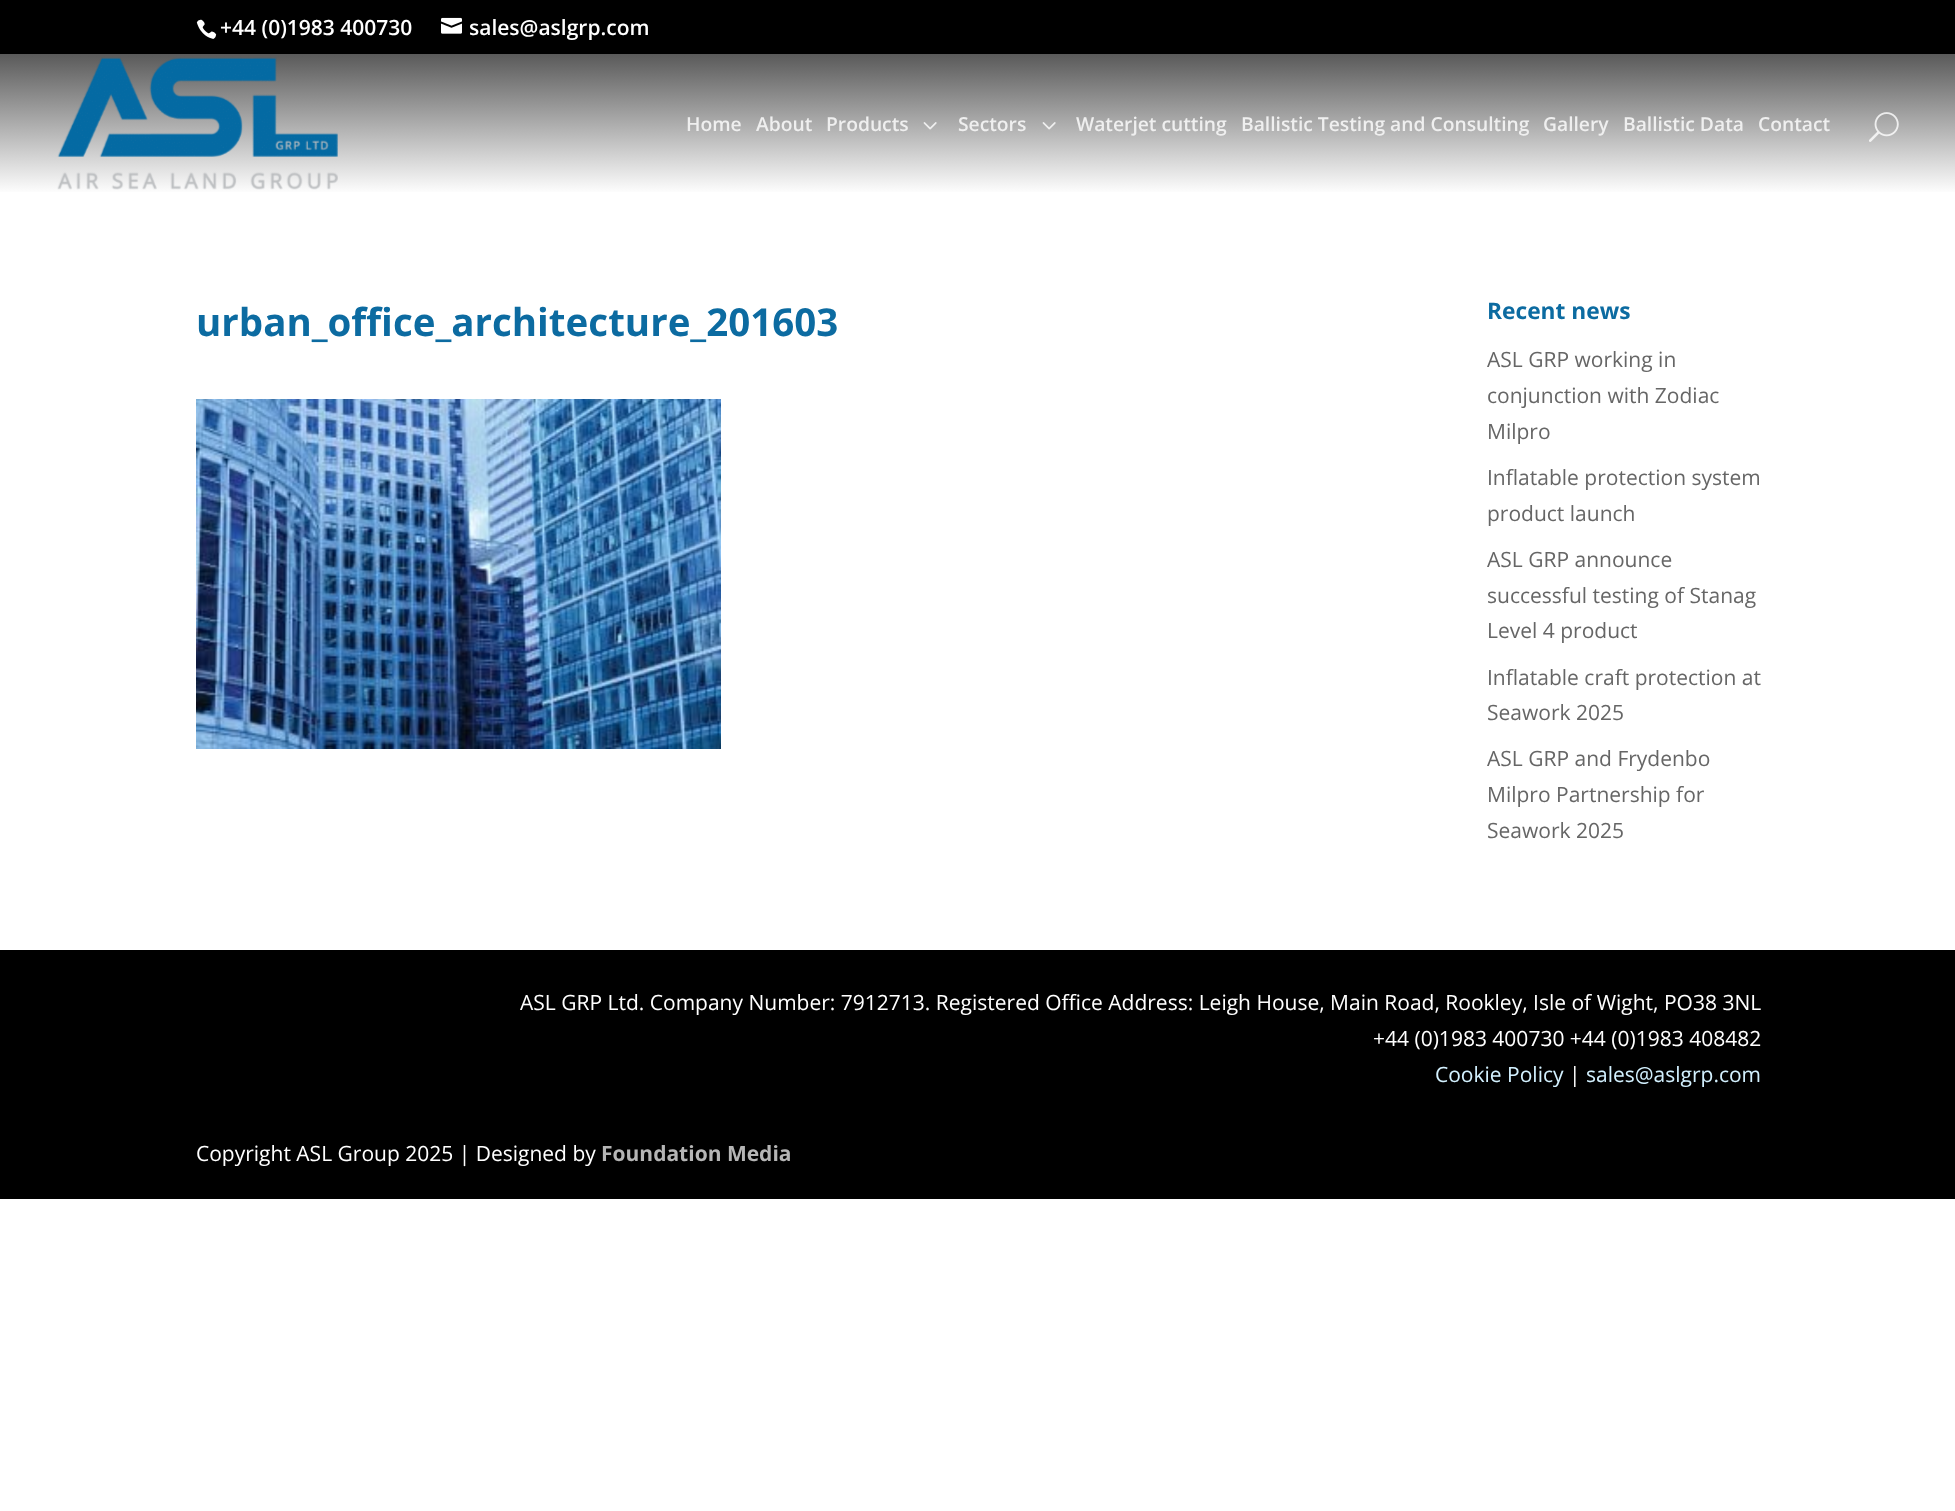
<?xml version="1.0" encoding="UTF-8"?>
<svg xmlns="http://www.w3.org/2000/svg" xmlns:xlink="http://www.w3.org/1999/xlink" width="1955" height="1511">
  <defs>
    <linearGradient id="g1" gradientUnits="userSpaceOnUse" x1="978" y1="54" x2="978" y2="194"><stop offset="0" stop-color="#5a5a5a" /><stop offset="1" stop-color="#ffffff" /></linearGradient>
  </defs>
  <rect width="100%" height="100%" fill="#ffffff" />
  <rect width="1955" height="54" fill="#000000" />
  <image x="196" y="19" width="21" height="20" xlink:href="image1.png" />
  <image x="441" y="17" width="21" height="17" xlink:href="image2.png" />
  <rect y="54" width="1955" height="138" fill="url(#g1)" />
  <image x="57" y="57" width="281" height="133" xlink:href="image3.png" />
  <image x="923" y="122" width="14" height="8" xlink:href="image4.png" />
  <image x="1042" y="122" width="14" height="8" xlink:href="image4.png" />
  <image x="1869" y="112" width="30" height="30" xlink:href="image5.png" />
  <image x="196" y="399" width="525" height="350" xlink:href="image6.png" />
  <rect y="950" width="1955" height="249" fill="#000000" />
  <text x="220" y="35" style="font-family: Open Sans; font-size: 21px; font-weight: 600; fill: #ffffff">+44 (0)1983 400730</text>
  <text x="469" y="35" style="font-family: Open Sans; font-size: 21px; font-weight: 600; fill: #ffffff">sales@aslgrp.com</text>
  <text x="686" y="131" style="font-family: Open Sans; font-size: 19.25px; font-weight: 600; fill: #efefef">Home</text>
  <text x="756" y="131" style="font-family: Open Sans; font-size: 19.25px; font-weight: 600; fill: #efefef">About</text>
  <text x="826" y="131" style="font-family: Open Sans; font-size: 19.25px; font-weight: 600; fill: #efefef">Products</text>
  <text x="958" y="131" style="font-family: Open Sans; font-size: 19.25px; font-weight: 600; fill: #efefef">Sectors</text>
  <text x="1076" y="131" style="font-family: Open Sans; font-size: 19.25px; font-weight: 600; fill: #efefef">Waterjet cutting</text>
  <text x="1241" y="131" style="font-family: Open Sans; font-size: 19.25px; font-weight: 600; fill: #efefef">Ballistic Testing and Consulting</text>
  <text x="1543" y="131" style="font-family: Open Sans; font-size: 19.25px; font-weight: 600; fill: #efefef">Gallery</text>
  <text x="1623" y="131" style="font-family: Open Sans; font-size: 19.25px; font-weight: 600; fill: #efefef">Ballistic Data</text>
  <text x="1758" y="131" style="font-family: Open Sans; font-size: 19.25px; font-weight: 600; fill: #efefef">Contact</text>
  <text x="196" y="336" style="font-family: Open Sans; font-size: 38.5px; font-weight: bold; fill: #0c6ba1">urban_office_architecture_201603</text>
  <text x="1487" y="319" style="font-family: Open Sans; font-size: 22.75px; font-weight: bold; fill: #0c6ba1">Recent news</text>
  <text x="1487" y="367" style="font-family: Open Sans; font-size: 21px; fill: #666666">ASL GRP working in</text>
  <text x="1487" y="403" style="font-family: Open Sans; font-size: 21px; fill: #666666">conjunction with Zodiac</text>
  <text x="1487" y="439" style="font-family: Open Sans; font-size: 21px; fill: #666666">Milpro</text>
  <text x="1487" y="485" style="font-family: Open Sans; font-size: 21px; fill: #666666">Inflatable protection system</text>
  <text x="1487" y="521" style="font-family: Open Sans; font-size: 21px; fill: #666666">product launch</text>
  <text x="1487" y="567" style="font-family: Open Sans; font-size: 21px; fill: #666666">ASL GRP announce</text>
  <text x="1487" y="603" style="font-family: Open Sans; font-size: 21px; fill: #666666">successful testing of Stanag</text>
  <text x="1487" y="638" style="font-family: Open Sans; font-size: 21px; fill: #666666">Level 4 product</text>
  <text x="1487" y="685" style="font-family: Open Sans; font-size: 21px; fill: #666666">Inflatable craft protection at</text>
  <text x="1487" y="720" style="font-family: Open Sans; font-size: 21px; fill: #666666">Seawork 2025</text>
  <text x="1487" y="766" style="font-family: Open Sans; font-size: 21px; fill: #666666">ASL GRP and Frydenbo</text>
  <text x="1487" y="802" style="font-family: Open Sans; font-size: 21px; fill: #666666">Milpro Partnership for</text>
  <text x="1487" y="838" style="font-family: Open Sans; font-size: 21px; fill: #666666">Seawork 2025</text>
  <text x="520" y="1010" style="font-family: Open Sans; font-size: 21px; fill: #ffffff">ASL GRP Ltd. Company Number: 7912713. Registered Office Address: Leigh House, Main Road, Rookley, Isle of Wight, PO38 3NL</text>
  <text x="1373" y="1046" style="font-family: Open Sans; font-size: 21px; fill: #ffffff">+44 (0)1983 400730 +44 (0)1983 408482</text>
  <text x="1435" y="1082" style="font-family: Open Sans; font-size: 21px; fill: #d3f1ff">Cookie Policy</text>
  <text x="1569" y="1082" style="font-family: Open Sans; font-size: 21px; fill: #ffffff">|</text>
  <text x="1586" y="1082" style="font-family: Open Sans; font-size: 21px; fill: #d3f1ff">sales@aslgrp.com</text>
  <text x="196" y="1161" style="font-family: Open Sans; font-size: 21px; fill: #ffffff">Copyright ASL Group 2025 | Designed by</text>
  <text x="601" y="1161" style="font-family: Open Sans; font-size: 21px; font-weight: bold; fill: #b5b5b5">Foundation Media</text>
</svg>
